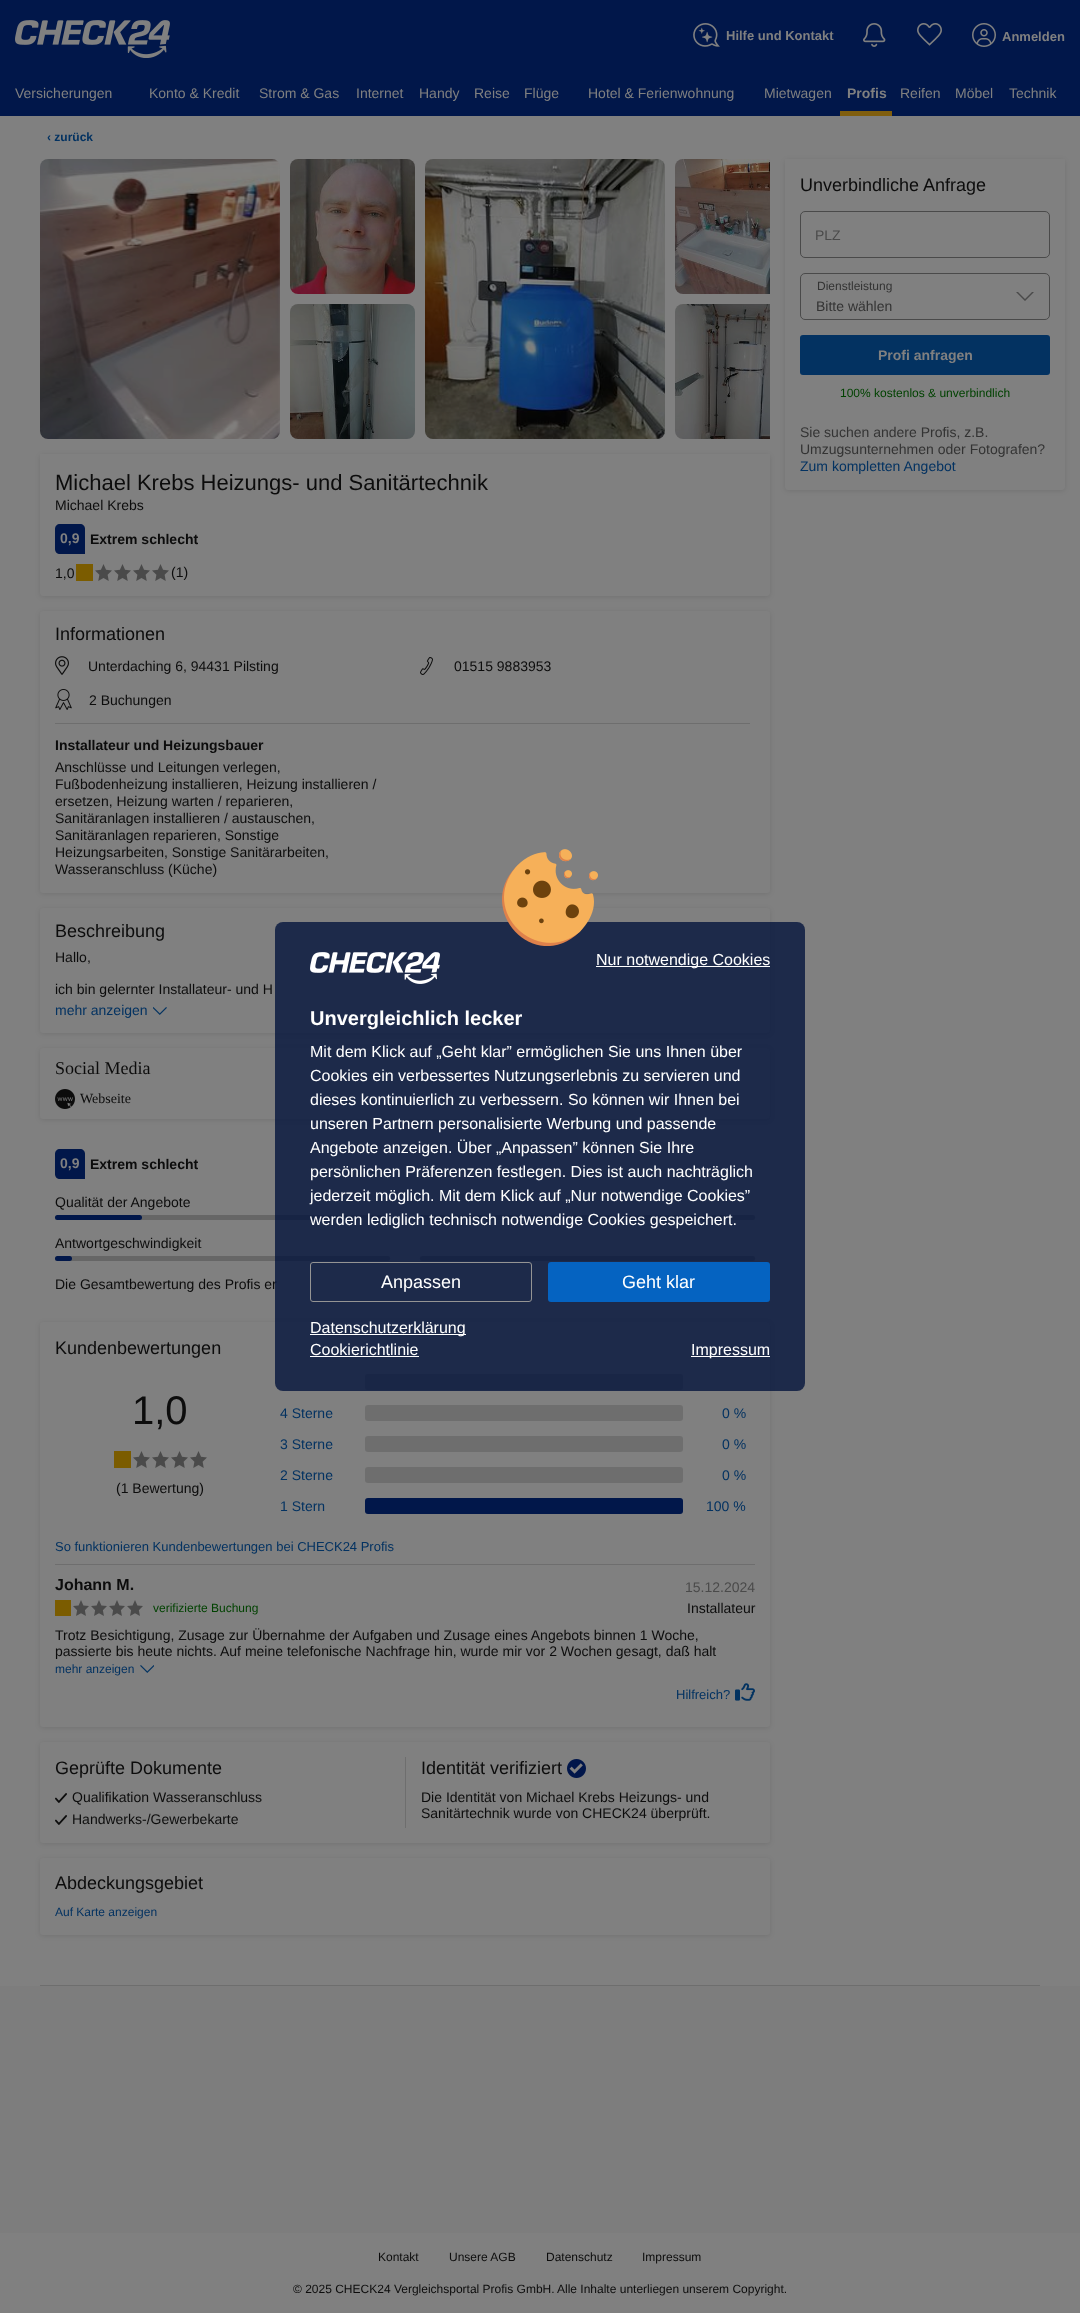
<?xml version="1.0" encoding="UTF-8"?>
<svg xmlns="http://www.w3.org/2000/svg" xmlns:xlink="http://www.w3.org/1999/xlink" width="1080" height="2313">
  <defs>
    <clipPath id="clip1"><rect x="1016" y="292" width="18" height="10" /></clipPath>
  </defs>
  <rect width="100%" height="100%" fill="#7d7d7d" />
  <rect width="1080" height="116" fill="#01174a" />
  <image x="15" y="20" width="155" height="38" xlink:href="image1.png" />
  <image x="693" y="23" width="27" height="24" xlink:href="image2.png" />
  <image x="863" y="23" width="23" height="24" xlink:href="image3.png" />
  <image x="917" y="23" width="25" height="23" xlink:href="image4.png" />
  <image x="972" y="23" width="24" height="24" xlink:href="image5.png" />
  <rect x="840" y="111" width="52" height="5" fill="#805e0e" />
  <rect y="116" width="1080" height="1870" fill="#808080" />
  <rect x="40" y="1985" width="1000" height="1" fill="#6e6e6e" />
  <rect x="785" y="160" width="280" height="331" rx="3" fill="#000000" fill-opacity="0.1" filter="blur(2.5px)" />
  <path d="M 785 159 h 280 v 328 c 0 1.5 -1.5 3 -3 3 h -274 c -1.5 0 -3 -1.5 -3 -3 z" fill="#808080" />
  <rect x="800.5" y="211.5" width="249" height="46" rx="4.5" fill="none" stroke="#4a4a4a" />
  <rect x="800.5" y="273.5" width="249" height="46" rx="4.5" fill="none" stroke="#4a4a4a" />
  <g clip-path="url(#clip1)">
    <path d="M 1025 301 l -9 -9 l 1 -1 l 8 8 l 8 -8 l 1 1 z" fill="#4a4a4a" />
  </g>
  <rect x="800" y="335" width="250" height="40" rx="3" fill="#033261" />
  <image x="40" y="159" width="240" height="280" xlink:href="image6.png" />
  <image x="290" y="159" width="125" height="135" xlink:href="image7.png" />
  <image x="425" y="159" width="240" height="280" xlink:href="image8.png" />
  <image x="675" y="159" width="95" height="135" xlink:href="image9.png" />
  <image x="290" y="304" width="125" height="135" xlink:href="image10.png" />
  <image x="675" y="304" width="95" height="135" xlink:href="image11.png" />
  <rect x="40" y="455" width="730" height="142" rx="3" fill="#000000" fill-opacity="0.1" filter="blur(2.5px)" />
  <path d="M 40 454 h 730 v 139 c 0 1.5 -1.5 3 -3 3 h -724 c -1.5 0 -3 -1.5 -3 -3 z" fill="#808080" />
  <path d="M 60 524 h 20 c 3 0 5 2 5 5 v 25 h -25 c -3 0 -5 -2 -5 -5 v -20 c 0 -3 2 -5 5 -5 z" fill="#01174a" />
  <image x="95" y="564" width="74" height="17" xlink:href="image12.png" />
  <rect x="76" y="564" width="17" height="17" fill="#7b5c00" />
  <rect x="40" y="612" width="730" height="282" rx="3" fill="#000000" fill-opacity="0.1" filter="blur(2.5px)" />
  <rect x="40" y="611" width="730" height="282" rx="3" fill="#808080" />
  <image x="55" y="656" width="14" height="19" xlink:href="image13.png" />
  <image x="420" y="657" width="13" height="18" xlink:href="image14.png" />
  <image x="55" y="689" width="17" height="21" xlink:href="image15.png" />
  <rect x="55" y="723" width="695" height="1" fill="#6e6e6e" />
  <rect x="40" y="909" width="730" height="125" rx="3" fill="#000000" fill-opacity="0.1" filter="blur(2.5px)" />
  <rect x="40" y="908" width="730" height="125" rx="3" fill="#808080" />
  <image x="153" y="1007" width="14" height="8" xlink:href="image16.png" />
  <rect x="40" y="1049" width="730" height="71" rx="3" fill="#000000" fill-opacity="0.1" filter="blur(2.5px)" />
  <rect x="40" y="1048" width="730" height="71" rx="3" fill="#808080" />
  <image x="55" y="1089" width="20" height="20" xlink:href="image17.png" />
  <path d="M 60 1149 h 20 c 3 0 5 2 5 5 v 25 h -25 c -3 0 -5 -2 -5 -5 v -20 c 0 -3 2 -5 5 -5 z" fill="#01174a" />
  <rect x="55" y="1215" width="335" height="5" rx="2.5" fill="#666666" />
  <rect x="55" y="1215" width="87" height="5" rx="2.5" fill="#01174a" />
  <rect x="420" y="1215" width="335" height="5" rx="2.5" fill="#666666" />
  <rect x="420" y="1215" width="3" height="5" rx="1.5" fill="#01174a" />
  <rect x="55" y="1256" width="335" height="5" rx="2.5" fill="#666666" />
  <rect x="55" y="1256" width="17" height="5" rx="2.5" fill="#01174a" />
  <rect x="420" y="1256" width="335" height="5" rx="2.5" fill="#666666" />
  <rect x="40" y="1323" width="730" height="405" rx="3" fill="#000000" fill-opacity="0.1" filter="blur(2.5px)" />
  <rect x="40" y="1322" width="730" height="405" rx="3" fill="#808080" />
  <rect x="365" y="1374" width="318" height="16" rx="3" fill="#6e6e6e" />
  <rect x="365" y="1405" width="318" height="16" rx="3" fill="#6e6e6e" />
  <rect x="365" y="1436" width="318" height="16" rx="3" fill="#6e6e6e" />
  <rect x="365" y="1467" width="318" height="16" rx="3" fill="#6e6e6e" />
  <rect x="365" y="1498" width="318" height="16" rx="3" fill="#01174a" />
  <image x="133" y="1451" width="74" height="17" xlink:href="image12.png" />
  <rect x="114" y="1451" width="17" height="17" fill="#7b5c00" />
  <rect x="55" y="1564" width="700" height="1" fill="#6e6e6e" />
  <image x="73" y="1600" width="70" height="16" xlink:href="image18.png" />
  <rect x="55" y="1600" width="16" height="16" fill="#7b5c00" />
  <image x="140" y="1665" width="14" height="8" xlink:href="image19.png" />
  <image x="735" y="1683" width="20" height="18" xlink:href="image20.png" />
  <rect x="40" y="1743" width="730" height="101" rx="3" fill="#000000" fill-opacity="0.1" filter="blur(2.5px)" />
  <rect x="40" y="1742" width="730" height="101" rx="3" fill="#808080" />
  <image x="55" y="1793" width="12" height="10" xlink:href="image21.png" />
  <image x="55" y="1815" width="12" height="10" xlink:href="image21.png" />
  <rect x="405" y="1757" width="1" height="71" fill="#6e6e6e" />
  <image x="567" y="1759" width="19" height="19" xlink:href="image22.png" />
  <rect x="40" y="1859" width="730" height="77" rx="3" fill="#000000" fill-opacity="0.1" filter="blur(2.5px)" />
  <rect x="40" y="1858" width="730" height="77" rx="3" fill="#808080" />
  <rect y="2233" width="1080" height="80" fill="#808080" />
  <text x="726" y="40" style="font-family: Liberation Sans; font-size: 13px; font-weight: bold; fill: #808080">Hilfe und Kontakt</text>
  <text x="1002" y="41" style="font-family: Liberation Sans; font-size: 13px; font-weight: bold; fill: #808080">Anmelden</text>
  <text x="15" y="98" style="font-family: Liberation Sans; font-size: 14px; fill: #808080">Versicherungen</text>
  <text x="149" y="98" style="font-family: Liberation Sans; font-size: 14px; fill: #808080">Konto &amp; Kredit</text>
  <text x="259" y="98" style="font-family: Liberation Sans; font-size: 14px; fill: #808080">Strom &amp; Gas</text>
  <text x="356" y="98" style="font-family: Liberation Sans; font-size: 14px; fill: #808080">Internet</text>
  <text x="419" y="98" style="font-family: Liberation Sans; font-size: 14px; fill: #808080">Handy</text>
  <text x="474" y="98" style="font-family: Liberation Sans; font-size: 14px; fill: #808080">Reise</text>
  <text x="524" y="98" style="font-family: Liberation Sans; font-size: 14px; fill: #808080">Flüge</text>
  <text x="588" y="98" style="font-family: Liberation Sans; font-size: 14px; fill: #808080">Hotel &amp; Ferienwohnung</text>
  <text x="764" y="98" style="font-family: Liberation Sans; font-size: 14px; fill: #808080">Mietwagen</text>
  <text x="847" y="98" style="font-family: Liberation Sans; font-size: 14px; font-weight: bold; fill: #808080">Profis</text>
  <text x="900" y="98" style="font-family: Liberation Sans; font-size: 14px; fill: #808080">Reifen</text>
  <text x="955" y="98" style="font-family: Liberation Sans; font-size: 14px; fill: #808080">Möbel</text>
  <text x="1009" y="98" style="font-family: Liberation Sans; font-size: 14px; fill: #808080">Technik</text>
  <text x="47" y="141" style="font-family: Liberation Sans; font-size: 12px; font-weight: bold; fill: #033261">‹ zurück</text>
  <text x="800" y="191" style="font-family: Liberation Sans; font-size: 18px; fill: #0c0c0c">Unverbindliche Anfrage</text>
  <text x="815" y="240" style="font-family: Liberation Sans; font-size: 14px; fill: #4a4a4a">PLZ</text>
  <text x="817" y="290" style="font-family: Liberation Sans; font-size: 12px; fill: #333333">Dienstleistung</text>
  <text x="816" y="311" style="font-family: Liberation Sans; font-size: 14px; fill: #333333">Bitte wählen</text>
  <text x="878" y="360" style="font-family: Liberation Sans; font-size: 14px; font-weight: bold; fill: #808080">Profi anfragen</text>
  <text x="840" y="397" style="font-family: Liberation Sans; font-size: 12px; fill: #004200">100% kostenlos &amp; unverbindlich</text>
  <text x="800" y="437" style="font-family: Liberation Sans; font-size: 14px; fill: #333333">Sie suchen andere Profis, z.B.</text>
  <text x="800" y="454" style="font-family: Liberation Sans; font-size: 14px; fill: #333333">Umzugsunternehmen oder Fotografen?</text>
  <text x="800" y="471" style="font-family: Liberation Sans; font-size: 14px; fill: #033261">Zum kompletten Angebot</text>
  <text x="55" y="490" style="font-family: Liberation Sans; font-size: 22px; fill: #0c0c0c">Michael Krebs Heizungs- und Sanitärtechnik</text>
  <text x="55" y="510" style="font-family: Liberation Sans; font-size: 14px; fill: #0c0c0c">Michael Krebs</text>
  <text x="60" y="543" style="font-family: Liberation Sans; font-size: 14px; font-weight: bold; fill: #808080">0,9</text>
  <text x="90" y="544" style="font-family: Liberation Sans; font-size: 14px; font-weight: bold; fill: #0c0c0c">Extrem schlecht</text>
  <text x="55" y="578" style="font-family: Liberation Sans; font-size: 14px; fill: #0c0c0c">1,0</text>
  <text x="171" y="577" style="font-family: Liberation Sans; font-size: 14px; fill: #0c0c0c">(1)</text>
  <text x="55" y="640" style="font-family: Liberation Sans; font-size: 18px; fill: #0c0c0c">Informationen</text>
  <text x="88" y="671" style="font-family: Liberation Sans; font-size: 14px; fill: #0c0c0c">Unterdaching 6, 94431 Pilsting</text>
  <text x="454" y="671" style="font-family: Liberation Sans; font-size: 14px; fill: #0c0c0c">01515 9883953</text>
  <text x="89" y="705" style="font-family: Liberation Sans; font-size: 14px; fill: #0c0c0c">2 Buchungen</text>
  <text x="55" y="750" style="font-family: Liberation Sans; font-size: 14px; font-weight: bold; fill: #0c0c0c">Installateur und Heizungsbauer</text>
  <text x="55" y="772" style="font-family: Liberation Sans; font-size: 14px; fill: #0c0c0c">Anschlüsse und Leitungen verlegen,</text>
  <text x="55" y="789" style="font-family: Liberation Sans; font-size: 14px; fill: #0c0c0c">Fußbodenheizung installieren, Heizung installieren /</text>
  <text x="55" y="806" style="font-family: Liberation Sans; font-size: 14px; fill: #0c0c0c">ersetzen, Heizung warten / reparieren,</text>
  <text x="55" y="823" style="font-family: Liberation Sans; font-size: 14px; fill: #0c0c0c">Sanitäranlagen installieren / austauschen,</text>
  <text x="55" y="840" style="font-family: Liberation Sans; font-size: 14px; fill: #0c0c0c">Sanitäranlagen reparieren, Sonstige</text>
  <text x="55" y="857" style="font-family: Liberation Sans; font-size: 14px; fill: #0c0c0c">Heizungsarbeiten, Sonstige Sanitärarbeiten,</text>
  <text x="55" y="874" style="font-family: Liberation Sans; font-size: 14px; fill: #0c0c0c">Wasseranschluss (Küche)</text>
  <text x="55" y="937" style="font-family: Liberation Sans; font-size: 18px; fill: #0c0c0c">Beschreibung</text>
  <text x="55" y="962" style="font-family: Liberation Sans; font-size: 14px; fill: #0c0c0c">Hallo,</text>
  <text x="55" y="994" style="font-family: Liberation Sans; font-size: 14px; fill: #0c0c0c">ich bin gelernter Installateur- und H</text>
  <text x="55" y="1015" style="font-family: Liberation Sans; font-size: 14px; fill: #033261">mehr anzeigen</text>
  <text x="55" y="1074" style="font-family: Liberation Serif; font-size: 18px; fill: #0c0c0c">Social Media</text>
  <text x="80" y="1103" style="font-family: Liberation Serif; font-size: 14px; fill: #0c0c0c">Webseite</text>
  <text x="60" y="1168" style="font-family: Liberation Sans; font-size: 14px; font-weight: bold; fill: #808080">0,9</text>
  <text x="90" y="1169" style="font-family: Liberation Sans; font-size: 14px; font-weight: bold; fill: #0c0c0c">Extrem schlecht</text>
  <text x="55" y="1207" style="font-family: Liberation Sans; font-size: 14px; fill: #0c0c0c">Qualität der Angebote</text>
  <text x="55" y="1248" style="font-family: Liberation Sans; font-size: 14px; fill: #0c0c0c">Antwortgeschwindigkeit</text>
  <text x="55" y="1289" style="font-family: Liberation Sans; font-size: 14px; fill: #0c0c0c">Die Gesamtbewertung des Profis er</text>
  <text x="55" y="1354" style="font-family: Liberation Sans; font-size: 18px; fill: #0c0c0c">Kundenbewertungen</text>
  <text x="132" y="1424" style="font-family: Liberation Sans; font-size: 40px; fill: #0c0c0c">1,0</text>
  <text x="280" y="1418" style="font-family: Liberation Sans; font-size: 14px; fill: #033261">4 Sterne</text>
  <text x="722" y="1418" style="font-family: Liberation Sans; font-size: 14px; fill: #033261">0 %</text>
  <text x="280" y="1449" style="font-family: Liberation Sans; font-size: 14px; fill: #033261">3 Sterne</text>
  <text x="722" y="1449" style="font-family: Liberation Sans; font-size: 14px; fill: #033261">0 %</text>
  <text x="280" y="1480" style="font-family: Liberation Sans; font-size: 14px; fill: #033261">2 Sterne</text>
  <text x="722" y="1480" style="font-family: Liberation Sans; font-size: 14px; fill: #033261">0 %</text>
  <text x="280" y="1511" style="font-family: Liberation Sans; font-size: 14px; fill: #033261">1 Stern</text>
  <text x="706" y="1511" style="font-family: Liberation Sans; font-size: 14px; fill: #033261">100 %</text>
  <text x="116" y="1493" style="font-family: Liberation Sans; font-size: 14px; fill: #0c0c0c">(1 Bewertung)</text>
  <text x="55" y="1551" style="font-family: Liberation Sans; font-size: 13px; fill: #033261">So funktionieren Kundenbewertungen bei CHECK24 Profis</text>
  <text x="55" y="1590" style="font-family: Liberation Sans; font-size: 16px; font-weight: bold; fill: #0c0c0c">Johann M.</text>
  <text x="685" y="1592" style="font-family: Liberation Sans; font-size: 14px; fill: #4a4a4a">15.12.2024</text>
  <text x="153" y="1612" style="font-family: Liberation Sans; font-size: 12px; fill: #004200">verifizierte Buchung</text>
  <text x="687" y="1613" style="font-family: Liberation Sans; font-size: 14px; fill: #0c0c0c">Installateur</text>
  <text x="55" y="1640" style="font-family: Liberation Sans; font-size: 14px; fill: #0c0c0c">Trotz Besichtigung, Zusage zur Übernahme der Aufgaben und Zusage eines Angebots binnen 1 Woche,</text>
  <text x="55" y="1656" style="font-family: Liberation Sans; font-size: 14px; fill: #0c0c0c">passierte bis heute nichts. Auf meine telefonische Nachfrage hin, wurde mir vor 2 Wochen gesagt, daß halt</text>
  <text x="55" y="1673" style="font-family: Liberation Sans; font-size: 12px; fill: #033261">mehr anzeigen</text>
  <text x="676" y="1699" style="font-family: Liberation Sans; font-size: 13px; fill: #033261">Hilfreich?</text>
  <text x="55" y="1774" style="font-family: Liberation Sans; font-size: 18px; fill: #0c0c0c">Geprüfte Dokumente</text>
  <text x="72" y="1802" style="font-family: Liberation Sans; font-size: 14px; fill: #0c0c0c">Qualifikation Wasseranschluss</text>
  <text x="72" y="1824" style="font-family: Liberation Sans; font-size: 14px; fill: #0c0c0c">Handwerks-/Gewerbekarte</text>
  <text x="421" y="1774" style="font-family: Liberation Sans; font-size: 18px; fill: #0c0c0c">Identität verifiziert</text>
  <text x="421" y="1802" style="font-family: Liberation Sans; font-size: 14px; fill: #0c0c0c">Die Identität von Michael Krebs Heizungs- und</text>
  <text x="421" y="1818" style="font-family: Liberation Sans; font-size: 14px; fill: #0c0c0c">Sanitärtechnik wurde von CHECK24 überprüft.</text>
  <text x="55" y="1889" style="font-family: Liberation Sans; font-size: 18px; fill: #0c0c0c">Abdeckungsgebiet</text>
  <text x="55" y="1916" style="font-family: Liberation Sans; font-size: 12px; fill: #033261">Auf Karte anzeigen</text>
  <text x="378" y="2261" style="font-family: Liberation Sans; font-size: 12px; fill: #0c0c0c">Kontakt</text>
  <text x="449" y="2261" style="font-family: Liberation Sans; font-size: 12px; fill: #0c0c0c">Unsere AGB</text>
  <text x="546" y="2261" style="font-family: Liberation Sans; font-size: 12px; fill: #0c0c0c">Datenschutz</text>
  <text x="642" y="2261" style="font-family: Liberation Sans; font-size: 12px; fill: #0c0c0c">Impressum</text>
  <text x="293" y="2293" style="font-family: Liberation Sans; font-size: 12px; fill: #0c0c0c">© 2025 CHECK24 Vergleichsportal Profis GmbH.</text>
  <text x="557" y="2293" style="font-family: Liberation Sans; font-size: 12px; fill: #0c0c0c">Alle Inhalte unterliegen unserem Copyright.</text>
  <rect x="275" y="922" width="530" height="469" rx="8" fill="#04143c" fill-opacity="0.8" />
  <image x="502" y="849" width="96" height="97" xlink:href="image23.png" />
  <image x="310" y="952" width="130" height="32" xlink:href="image24.png" />
  <rect x="596" y="966" width="174" height="1" fill="#ffffff" />
  <text x="596" y="965" style="font-family: Liberation Sans; font-size: 16px; fill: #ffffff">Nur notwendige Cookies</text>
  <text x="310" y="1025" style="font-family: Liberation Sans; font-size: 20px; font-weight: bold; fill: #ffffff">Unvergleichlich lecker</text>
  <text x="310" y="1057" style="font-family: Liberation Sans; font-size: 16px; fill: #ffffff">Mit dem Klick auf „Geht klar” ermöglichen Sie uns Ihnen über</text>
  <text x="310" y="1081" style="font-family: Liberation Sans; font-size: 16px; fill: #ffffff">Cookies ein verbessertes Nutzungserlebnis zu servieren und</text>
  <text x="310" y="1105" style="font-family: Liberation Sans; font-size: 16px; fill: #ffffff">dieses kontinuierlich zu verbessern. So können wir Ihnen bei</text>
  <text x="310" y="1129" style="font-family: Liberation Sans; font-size: 16px; fill: #ffffff">unseren Partnern personalisierte Werbung und passende</text>
  <text x="310" y="1153" style="font-family: Liberation Sans; font-size: 16px; fill: #ffffff">Angebote anzeigen. Über „Anpassen” können Sie Ihre</text>
  <text x="310" y="1177" style="font-family: Liberation Sans; font-size: 16px; fill: #ffffff">persönlichen Präferenzen festlegen. Dies ist auch nachträglich</text>
  <text x="310" y="1201" style="font-family: Liberation Sans; font-size: 16px; fill: #ffffff">jederzeit möglich. Mit dem Klick auf „Nur notwendige Cookies”</text>
  <text x="310" y="1225" style="font-family: Liberation Sans; font-size: 16px; fill: #ffffff">werden lediglich technisch notwendige Cookies gespeichert.</text>
  <rect x="310.5" y="1262.5" width="221" height="39" rx="2.5" fill="none" stroke="#949494" />
  <text x="381" y="1288" style="font-family: Liberation Sans; font-size: 18px; fill: #ffffff">Anpassen</text>
  <rect x="548" y="1262" width="222" height="40" rx="3" fill="#0563c1" />
  <text x="622" y="1288" style="font-family: Liberation Sans; font-size: 18px; fill: #ffffff">Geht klar</text>
  <rect x="310" y="1334" width="156" height="1" fill="#ffffff" />
  <text x="310" y="1333" style="font-family: Liberation Sans; font-size: 16px; fill: #ffffff">Datenschutzerklärung</text>
  <text x="310" y="1355" style="font-family: Liberation Sans; font-size: 16px; fill: #ffffff">Cookierichtlinie</text>
  <rect x="310" y="1356" width="109" height="1" fill="#ffffff" />
  <rect x="691" y="1356" width="79" height="1" fill="#ffffff" />
  <text x="691" y="1355" style="font-family: Liberation Sans; font-size: 16px; fill: #ffffff">Impressum</text>
</svg>
